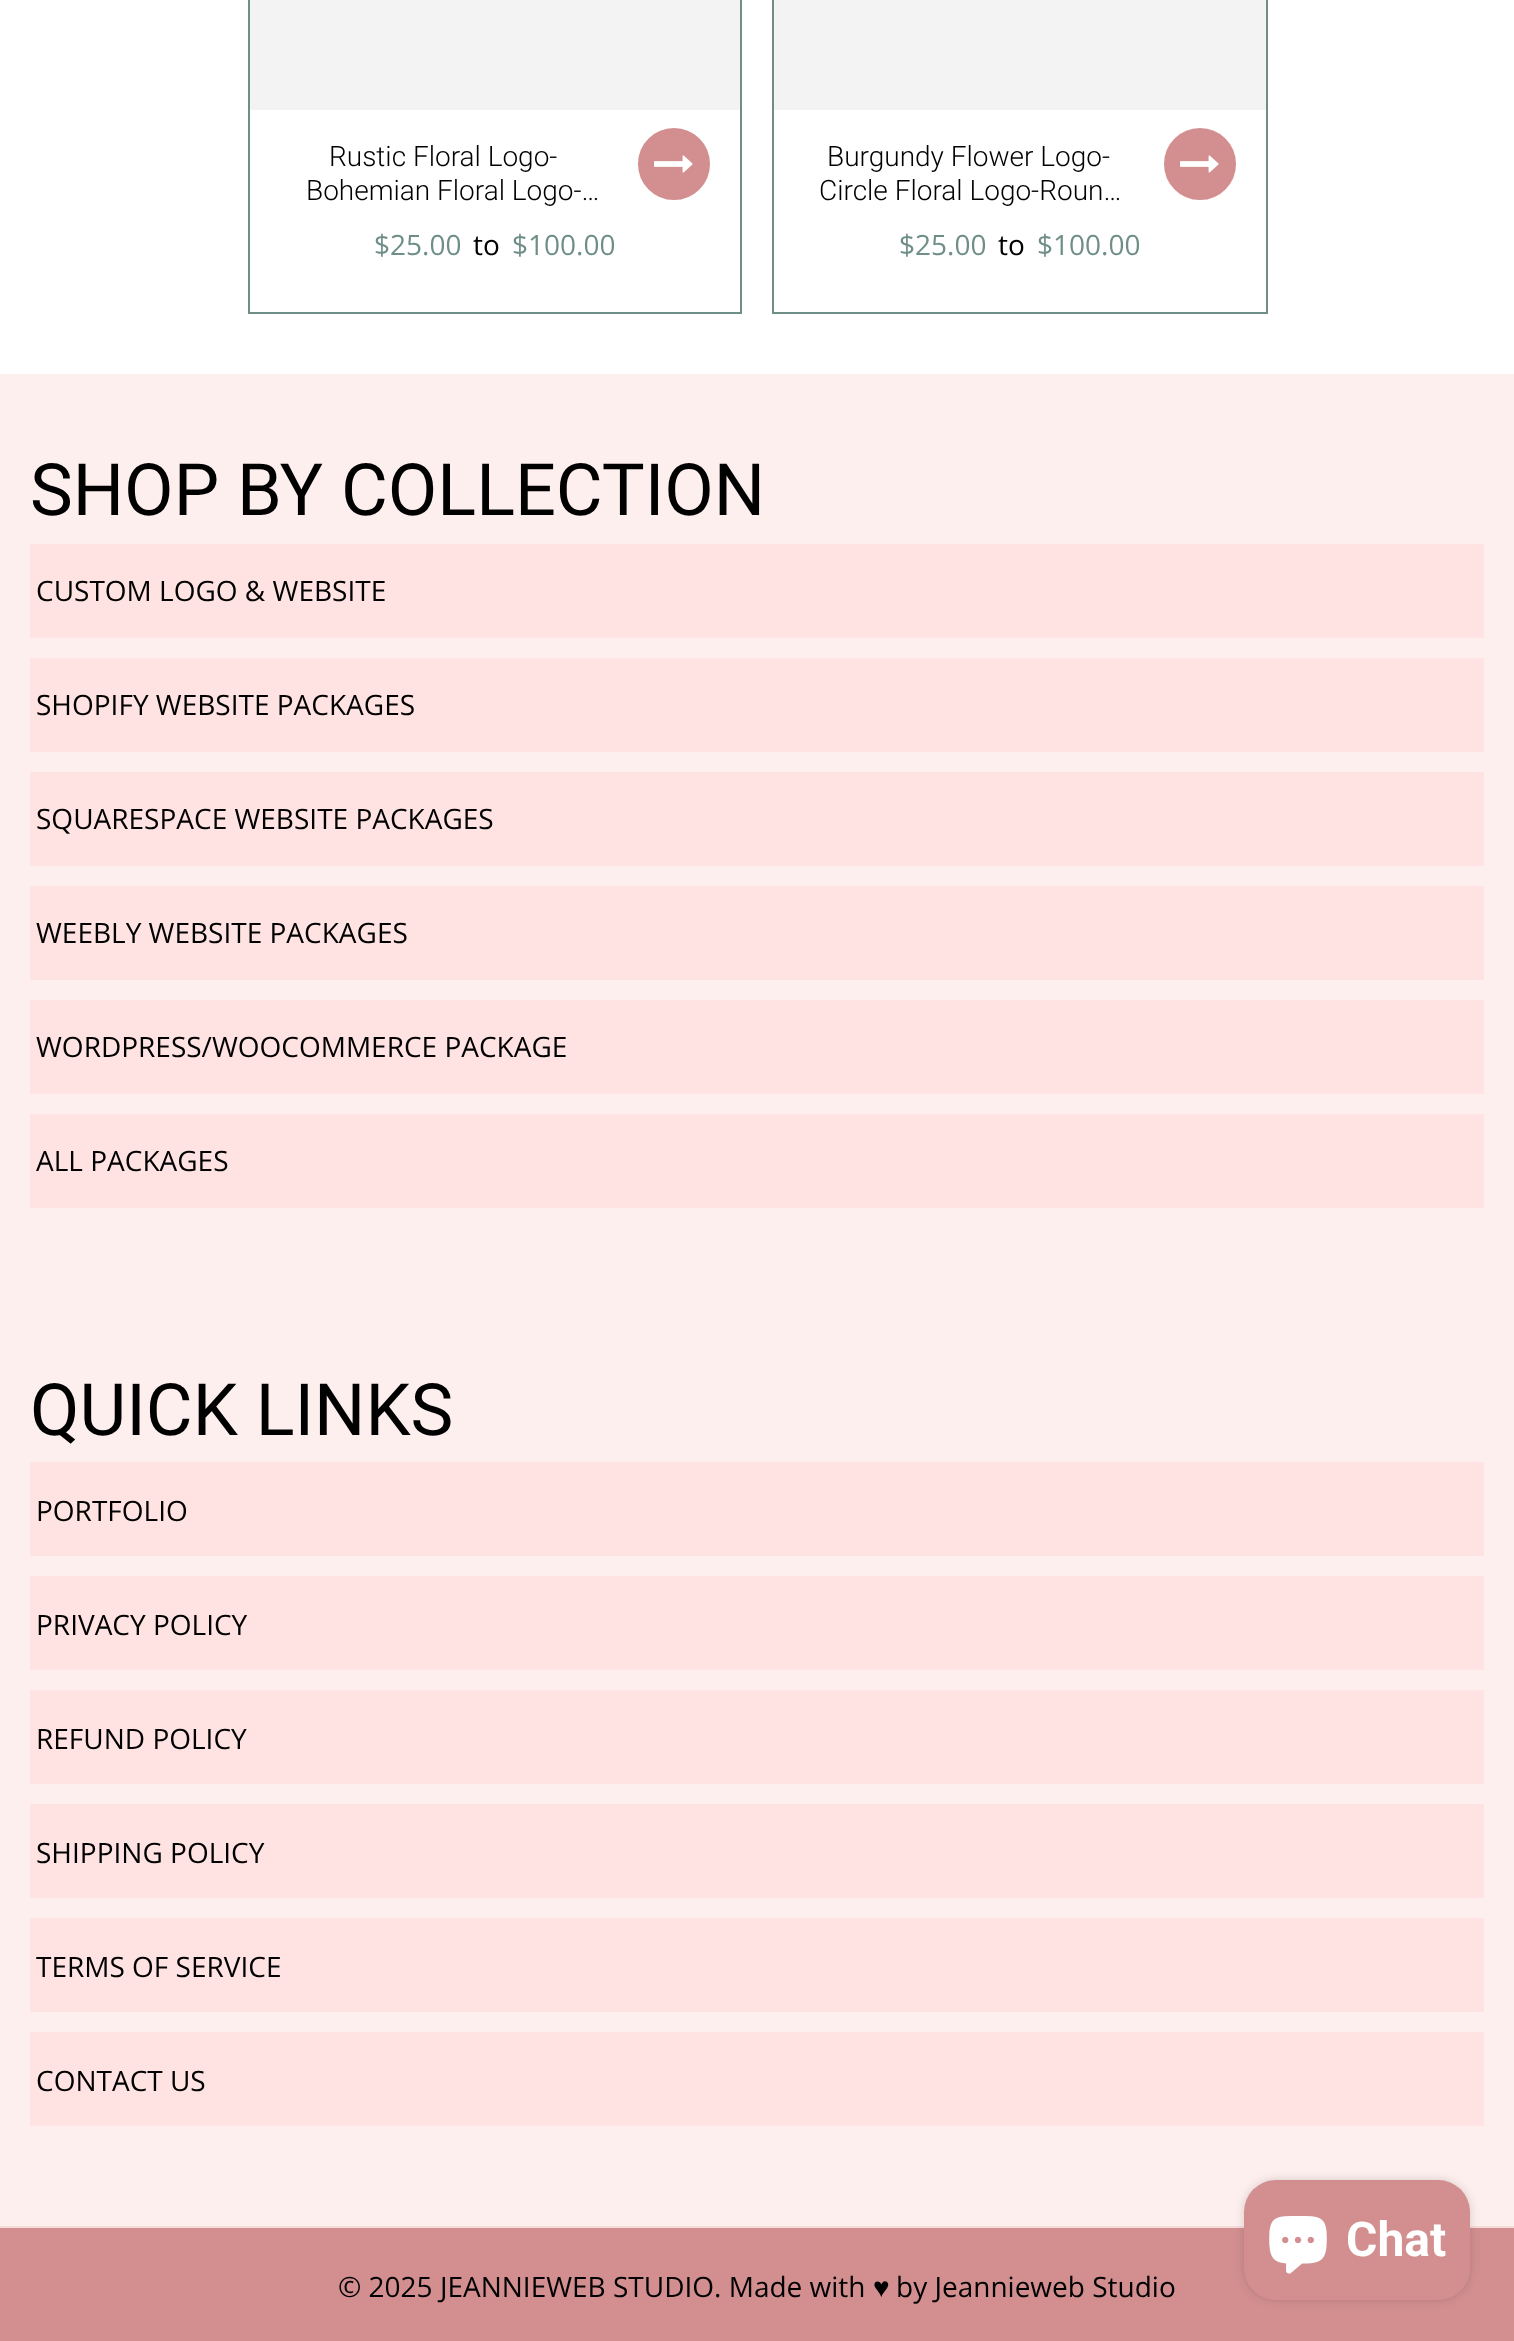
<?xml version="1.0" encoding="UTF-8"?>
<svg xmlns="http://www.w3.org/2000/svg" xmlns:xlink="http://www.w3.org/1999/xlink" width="1514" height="2341">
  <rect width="100%" height="100%" fill="#ffffff" />
  <rect x="249" y="-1" width="492" height="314" fill="none" stroke="#6f8e88" stroke-width="2" />
  <rect x="250" width="490" height="110" fill="#f3f3f3" />
  <circle cx="674" cy="164" r="35" fill="#d38f90" stroke="#d38f90" stroke-width="2" />
  <image x="654" y="155" width="39" height="18" xlink:href="image1.png" />
  <rect x="773" y="-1" width="494" height="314" fill="none" stroke="#6f8e88" stroke-width="2" />
  <rect x="774" width="492" height="110" fill="#f3f3f3" />
  <circle cx="1200" cy="164" r="35" fill="#d38f90" stroke="#d38f90" stroke-width="2" />
  <image x="1180" y="155" width="39" height="18" xlink:href="image1.png" />
  <rect y="374" width="1514" height="1852" fill="#fcefee" />
  <rect y="2226" width="1514" height="2" fill="#f4dcdb" />
  <rect x="30" y="544" width="1454" height="94" fill="#ffe3e2" />
  <rect x="30" y="658" width="1454" height="94" fill="#ffe3e2" />
  <rect x="30" y="772" width="1454" height="94" fill="#ffe3e2" />
  <rect x="30" y="886" width="1454" height="94" fill="#ffe3e2" />
  <rect x="30" y="1000" width="1454" height="94" fill="#ffe3e2" />
  <rect x="30" y="1114" width="1454" height="94" fill="#ffe3e2" />
  <rect x="30" y="1462" width="1454" height="94" fill="#ffe3e2" />
  <rect x="30" y="1576" width="1454" height="94" fill="#ffe3e2" />
  <rect x="30" y="1690" width="1454" height="94" fill="#ffe3e2" />
  <rect x="30" y="1804" width="1454" height="94" fill="#ffe3e2" />
  <rect x="30" y="1918" width="1454" height="94" fill="#ffe3e2" />
  <rect x="30" y="2032" width="1454" height="94" fill="#ffe3e2" />
  <rect y="2228" width="1514" height="113" fill="#d38f90" />
  <rect x="1244" y="2180" width="226" height="120" rx="32" fill="#000000" fill-opacity="0.15" filter="blur(5px)" />
  <rect x="1244" y="2180" width="226" height="120" rx="32" fill="#d38f90" />
  <image x="1269" y="2216" width="58" height="58" xlink:href="image2.png" />
  <text x="329" y="166" style="font-family: Roboto; font-size: 28px; font-weight: 300; fill: #000000">Rustic Floral Logo-</text>
  <text x="306" y="200" style="font-family: Roboto; font-size: 28px; font-weight: 300; fill: #000000">Bohemian Floral Logo-…</text>
  <text x="374" y="255" style="font-family: Open Sans; font-size: 28px; fill: #6f8e88">$25.00</text>
  <text x="473" y="255" style="font-family: Open Sans; font-size: 28px; fill: #000000">to</text>
  <text x="512" y="255" style="font-family: Open Sans; font-size: 28px; fill: #6f8e88">$100.00</text>
  <text x="827" y="166" style="font-family: Roboto; font-size: 28px; font-weight: 300; fill: #000000">Burgundy Flower Logo-</text>
  <text x="819" y="200" style="font-family: Roboto; font-size: 28px; font-weight: 300; fill: #000000">Circle Floral Logo-Roun…</text>
  <text x="899" y="255" style="font-family: Open Sans; font-size: 28px; fill: #6f8e88">$25.00</text>
  <text x="998" y="255" style="font-family: Open Sans; font-size: 28px; fill: #000000">to</text>
  <text x="1037" y="255" style="font-family: Open Sans; font-size: 28px; fill: #6f8e88">$100.00</text>
  <text x="30" y="515" style="font-family: Roboto; font-size: 72px; fill: #000000">SHOP BY COLLECTION</text>
  <text x="36" y="601" style="font-family: Open Sans; font-size: 28px; fill: #000000">CUSTOM LOGO &amp; WEBSITE</text>
  <text x="36" y="715" style="font-family: Open Sans; font-size: 28px; fill: #000000">SHOPIFY WEBSITE PACKAGES</text>
  <text x="36" y="829" style="font-family: Open Sans; font-size: 28px; fill: #000000">SQUARESPACE WEBSITE PACKAGES</text>
  <text x="36" y="943" style="font-family: Open Sans; font-size: 28px; fill: #000000">WEEBLY WEBSITE PACKAGES</text>
  <text x="36" y="1057" style="font-family: Open Sans; font-size: 28px; fill: #000000">WORDPRESS/WOOCOMMERCE PACKAGE</text>
  <text x="36" y="1171" style="font-family: Open Sans; font-size: 28px; fill: #000000">ALL PACKAGES</text>
  <text x="30" y="1435" style="font-family: Roboto; font-size: 72px; fill: #000000">QUICK LINKS</text>
  <text x="36" y="1521" style="font-family: Open Sans; font-size: 28px; fill: #000000">PORTFOLIO</text>
  <text x="36" y="1635" style="font-family: Open Sans; font-size: 28px; fill: #000000">PRIVACY POLICY</text>
  <text x="36" y="1749" style="font-family: Open Sans; font-size: 28px; fill: #000000">REFUND POLICY</text>
  <text x="36" y="1863" style="font-family: Open Sans; font-size: 28px; fill: #000000">SHIPPING POLICY</text>
  <text x="36" y="1977" style="font-family: Open Sans; font-size: 28px; fill: #000000">TERMS OF SERVICE</text>
  <text x="36" y="2091" style="font-family: Open Sans; font-size: 28px; fill: #000000">CONTACT US</text>
  <text x="338" y="2297" style="font-family: Open Sans; font-size: 28px; fill: #000000">© 2025 JEANNIEWEB STUDIO. Made with</text>
  <text x="873" y="2297" style="font-family: Liberation Sans; font-size: 28px; fill: #000000">♥</text>
  <text x="896" y="2297" style="font-family: Open Sans; font-size: 28px; fill: #000000">by Jeannieweb Studio</text>
  <text x="1346" y="2256" style="font-family: Roboto; font-size: 48px; font-weight: bold; fill: #ffffff">Chat</text>
</svg>
